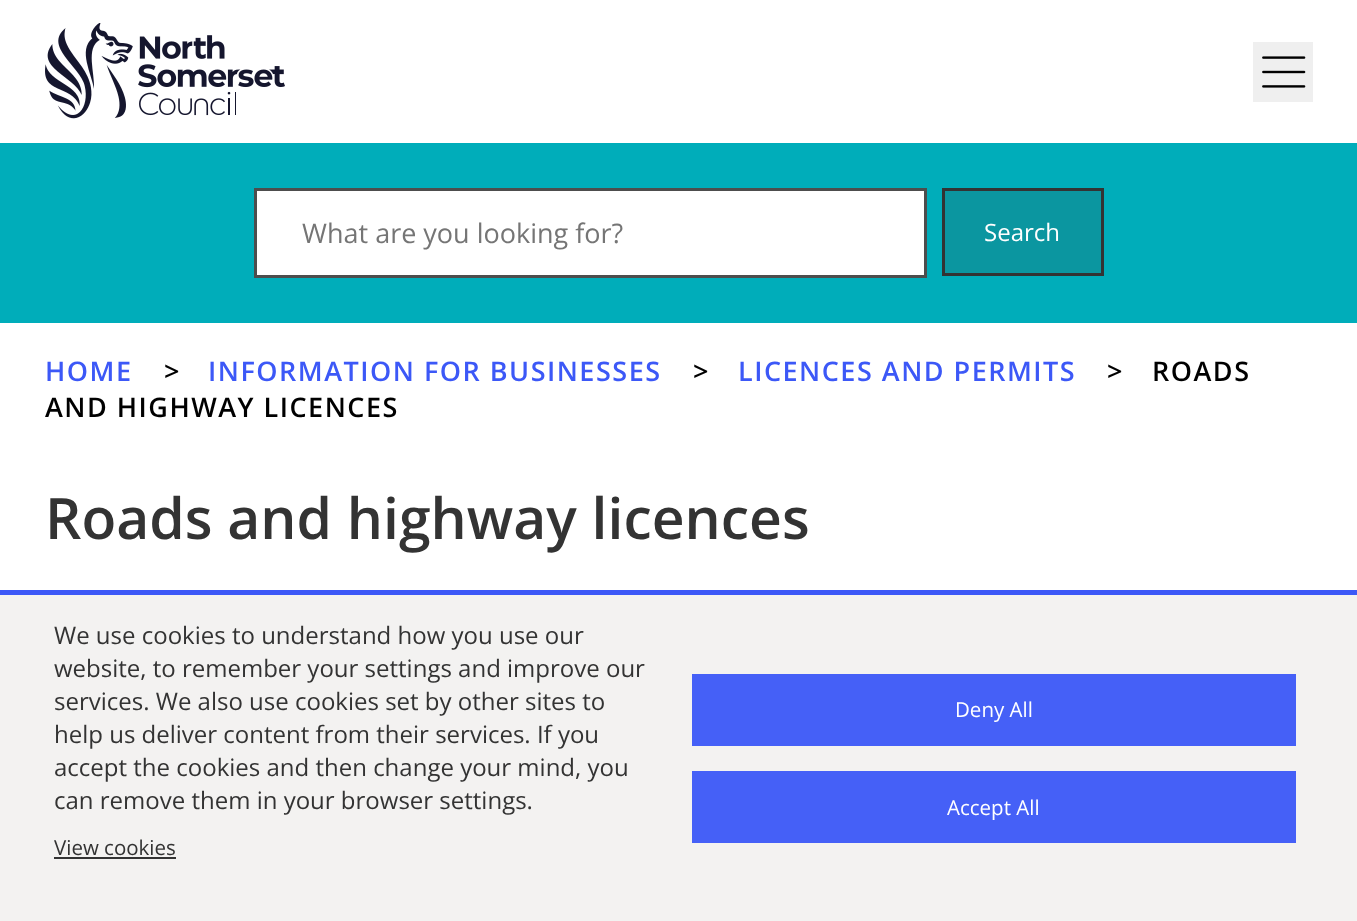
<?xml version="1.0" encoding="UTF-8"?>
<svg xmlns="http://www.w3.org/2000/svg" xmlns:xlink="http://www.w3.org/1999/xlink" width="1357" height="921">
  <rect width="100%" height="100%" fill="#ffffff" />
  <image x="45" y="23" width="240" height="96" xlink:href="image1.png" />
  <rect x="1253" y="42" width="60" height="60" fill="#efefef" />
  <image x="1262" y="56" width="44" height="32" xlink:href="image2.png" />
  <rect y="143" width="1357" height="180" fill="#00adba" />
  <rect x="255.5" y="189.5" width="670" height="87" fill="#ffffff" stroke="#4d4d4d" stroke-width="3" />
  <rect x="943.5" y="189.5" width="159" height="85" fill="#0b96a0" stroke="#333333" stroke-width="3" />
  <rect y="595" width="1357" height="326" fill="#f3f2f1" />
  <rect y="590" width="1357" height="5" fill="#3c58f7" />
  <rect x="54" y="857" width="122" height="2" fill="#333333" />
  <rect x="692" y="674" width="604" height="72" fill="#4560f7" />
  <rect x="692" y="771" width="604" height="72" fill="#4560f7" />
  <text x="302" y="243" style="font-family: Open Sans; font-size: 27px; fill: #757575">What are you looking for?</text>
  <text x="984" y="241" style="font-family: Open Sans; font-size: 24px; fill: #ffffff">Search</text>
  <text x="45" y="381" style="font-family: Open Sans; font-size: 27px; font-weight: 600; letter-spacing: 1.5px; fill: #3c58f7">HOME</text>
  <text x="164" y="381" style="font-family: Open Sans; font-size: 27px; font-weight: 600; letter-spacing: 1.5px; fill: #000000">&gt;</text>
  <text x="208" y="381" style="font-family: Open Sans; font-size: 27px; font-weight: 600; letter-spacing: 1.5px; fill: #3c58f7">INFORMATION FOR BUSINESSES</text>
  <text x="693" y="381" style="font-family: Open Sans; font-size: 27px; font-weight: 600; letter-spacing: 1.5px; fill: #000000">&gt;</text>
  <text x="738" y="381" style="font-family: Open Sans; font-size: 27px; font-weight: 600; letter-spacing: 1.5px; fill: #3c58f7">LICENCES AND PERMITS</text>
  <text x="1107" y="381" style="font-family: Open Sans; font-size: 27px; font-weight: 600; letter-spacing: 1.5px; fill: #000000">&gt;</text>
  <text x="1152" y="381" style="font-family: Open Sans; font-size: 27px; font-weight: 600; letter-spacing: 1.5px; fill: #000000">ROADS</text>
  <text x="45" y="417" style="font-family: Open Sans; font-size: 27px; font-weight: 600; letter-spacing: 1.5px; fill: #000000">AND HIGHWAY LICENCES</text>
  <text x="45" y="539" style="font-family: Open Sans; font-size: 57px; font-weight: 600; fill: #333333">Roads and highway licences</text>
  <text x="54" y="644" style="font-family: Open Sans; font-size: 24px; fill: #333333">We use cookies to understand how you use our</text>
  <text x="54" y="677" style="font-family: Open Sans; font-size: 24px; fill: #333333">website, to remember your settings and improve our</text>
  <text x="54" y="710" style="font-family: Open Sans; font-size: 24px; fill: #333333">services. We also use cookies set by other sites to</text>
  <text x="54" y="743" style="font-family: Open Sans; font-size: 24px; fill: #333333">help us deliver content from their services. If you</text>
  <text x="54" y="776" style="font-family: Open Sans; font-size: 24px; fill: #333333">accept the cookies and then change your mind, you</text>
  <text x="54" y="809" style="font-family: Open Sans; font-size: 24px; fill: #333333">can remove them in your browser settings.</text>
  <text x="54" y="855" style="font-family: Open Sans; font-size: 20.5px; fill: #333333">View cookies</text>
  <text x="955" y="717" style="font-family: Open Sans; font-size: 20.5px; fill: #ffffff">Deny All</text>
  <text x="947" y="815" style="font-family: Open Sans; font-size: 20.5px; fill: #ffffff">Accept All</text>
</svg>
